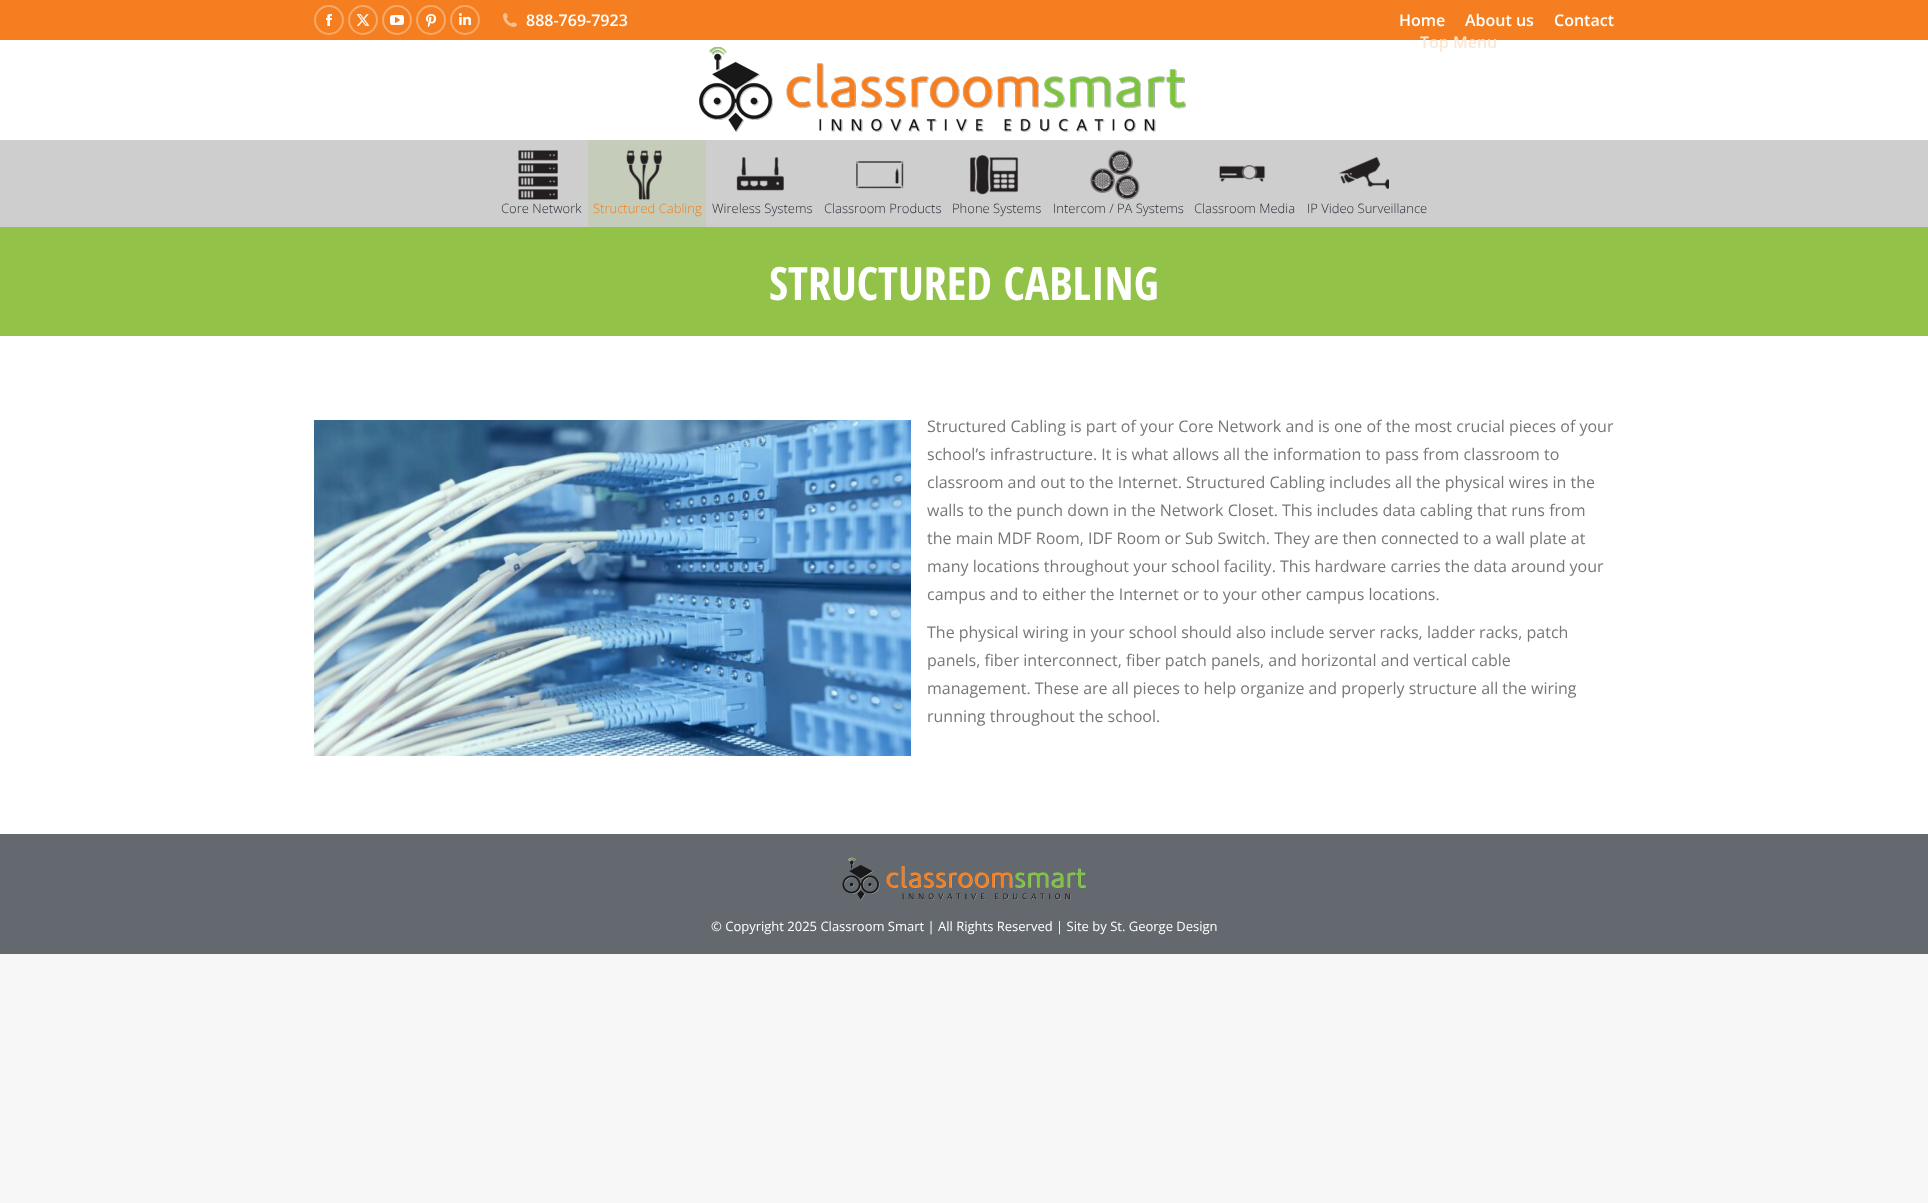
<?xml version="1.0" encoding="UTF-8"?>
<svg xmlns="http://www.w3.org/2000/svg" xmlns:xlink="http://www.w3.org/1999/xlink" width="1928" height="1203">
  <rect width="100%" height="100%" fill="#f7f7f7" />
  <rect y="40" width="1928" height="794" fill="#ffffff" />
  <rect width="1928" height="40" fill="#f57f20" />
  <circle cx="329" cy="20" r="14" fill="none" stroke="#f8a867" stroke-width="2" />
  <image x="326" y="14" width="6" height="12" xlink:href="image1.png" />
  <circle cx="363" cy="20" r="14" fill="none" stroke="#f8a867" stroke-width="2" />
  <image x="356" y="14" width="14" height="12" xlink:href="image2.png" />
  <circle cx="397" cy="20" r="14" fill="none" stroke="#f8a867" stroke-width="2" />
  <image x="390" y="15" width="14" height="10" xlink:href="image3.png" />
  <circle cx="431" cy="20" r="14" fill="none" stroke="#f8a867" stroke-width="2" />
  <image x="425" y="14" width="12" height="13" xlink:href="image4.png" />
  <circle cx="465" cy="20" r="14" fill="none" stroke="#f8a867" stroke-width="2" />
  <image x="459" y="13" width="12" height="12" xlink:href="image5.png" />
  <image x="503" y="13" width="14" height="14" xlink:href="image6.png" />
  <image x="699" y="47" width="487" height="85" xlink:href="image7.png" />
  <rect y="140" width="1928" height="87" fill="#cecece" />
  <image x="518" y="150" width="40" height="50" xlink:href="image8.png" />
  <rect x="588" y="140" width="118" height="87" fill="#c5ccba" />
  <image x="626" y="150" width="36" height="50" xlink:href="image9.png" />
  <image x="736" y="157" width="48" height="34" xlink:href="image10.png" />
  <image x="856" y="161" width="48" height="28" xlink:href="image11.png" />
  <image x="970" y="155" width="49" height="40" xlink:href="image12.png" />
  <image x="1090" y="150" width="50" height="50" xlink:href="image13.png" />
  <image x="1219" y="165" width="47" height="17" xlink:href="image14.png" />
  <image x="1339" y="157" width="50" height="32" xlink:href="image15.png" />
  <rect y="227" width="1928" height="109" fill="#93c248" />
  <image x="314" y="420" width="597" height="336" xlink:href="image16.png" />
  <rect y="834" width="1928" height="120" fill="#64696f" />
  <image x="842" y="857" width="244" height="43" xlink:href="image17.png" />
  <text x="526" y="26" style="font-family: Open Sans; font-size: 16px; font-weight: 600; fill: #ffffff">888-769-7923</text>
  <text x="1399" y="26" style="font-family: Open Sans; font-size: 16px; font-weight: 600; fill: #ffffff">Home</text>
  <text x="1465" y="26" style="font-family: Open Sans; font-size: 16px; font-weight: 600; fill: #ffffff">About us</text>
  <text x="1554" y="26" style="font-family: Open Sans; font-size: 16px; font-weight: 600; fill: #ffffff">Contact</text>
  <text x="1420" y="48" style="font-family: Open Sans; font-size: 16px; font-weight: 600; fill: #fde6d3">Top Menu</text>
  <text x="501" y="213" style="font-family: Open Sans; font-size: 13px; font-weight: 300; fill: #262d37">Core Network</text>
  <text x="593" y="213" style="font-family: Open Sans; font-size: 13px; font-weight: 300; fill: #f57f20">Structured Cabling</text>
  <text x="712" y="213" style="font-family: Open Sans; font-size: 13px; font-weight: 300; fill: #262d37">Wireless Systems</text>
  <text x="824" y="213" style="font-family: Open Sans; font-size: 13px; font-weight: 300; fill: #262d37">Classroom Products</text>
  <text x="952" y="213" style="font-family: Open Sans; font-size: 13px; font-weight: 300; fill: #262d37">Phone Systems</text>
  <text x="1053" y="213" style="font-family: Open Sans; font-size: 13px; font-weight: 300; fill: #262d37">Intercom / PA Systems</text>
  <text x="1194" y="213" style="font-family: Open Sans; font-size: 13px; font-weight: 300; fill: #262d37">Classroom Media</text>
  <text x="1307" y="213" style="font-family: Open Sans; font-size: 13px; font-weight: 300; fill: #262d37">IP Video Surveillance</text>
  <text x="769" y="300" style="font-family: Open Sans Condensed; font-size: 46px; font-weight: bold; fill: #ffffff">STRUCTURED CABLING</text>
  <text x="927" y="432" style="font-family: Open Sans; font-size: 16px; fill: #777777">Structured Cabling is part of your Core Network and is one of the most crucial pieces of your</text>
  <text x="927" y="460" style="font-family: Open Sans; font-size: 16px; fill: #777777">school’s infrastructure. It is what allows all the information to pass from classroom to</text>
  <text x="927" y="488" style="font-family: Open Sans; font-size: 16px; fill: #777777">classroom and out to the Internet. Structured Cabling includes all the physical wires in the</text>
  <text x="927" y="516" style="font-family: Open Sans; font-size: 16px; fill: #777777">walls to the punch down in the Network Closet. This includes data cabling that runs from</text>
  <text x="927" y="544" style="font-family: Open Sans; font-size: 16px; fill: #777777">the main MDF Room, IDF Room or Sub Switch. They are then connected to a wall plate at</text>
  <text x="927" y="572" style="font-family: Open Sans; font-size: 16px; fill: #777777">many locations throughout your school facility. This hardware carries the data around your</text>
  <text x="927" y="600" style="font-family: Open Sans; font-size: 16px; fill: #777777">campus and to either the Internet or to your other campus locations.</text>
  <text x="927" y="638" style="font-family: Open Sans; font-size: 16px; fill: #777777">The physical wiring in your school should also include server racks, ladder racks, patch</text>
  <text x="927" y="666" style="font-family: Open Sans; font-size: 16px; fill: #777777">panels, fiber interconnect, fiber patch panels, and horizontal and vertical cable</text>
  <text x="927" y="694" style="font-family: Open Sans; font-size: 16px; fill: #777777">management. These are all pieces to help organize and properly structure all the wiring</text>
  <text x="927" y="722" style="font-family: Open Sans; font-size: 16px; fill: #777777">running throughout the school.</text>
  <text x="711" y="931" style="font-family: Open Sans; font-size: 13px; fill: #ffffff">© Copyright 2025 Classroom Smart | All Rights Reserved | Site by St. George Design</text>
</svg>
